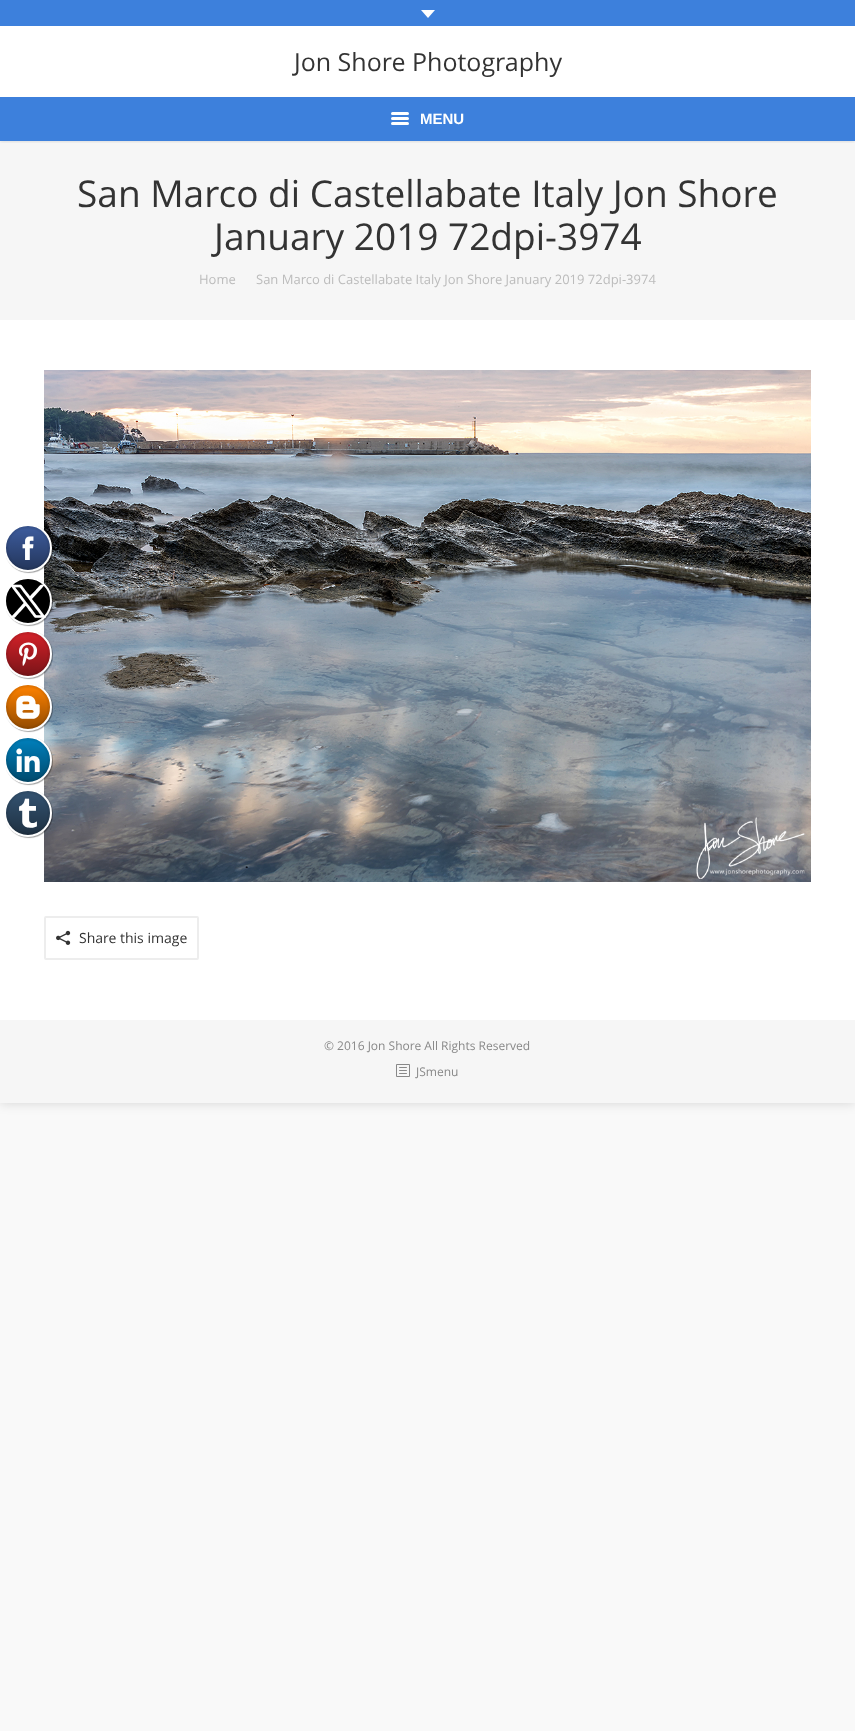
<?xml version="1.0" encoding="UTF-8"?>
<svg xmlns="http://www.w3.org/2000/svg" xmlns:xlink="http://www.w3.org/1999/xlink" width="855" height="1731">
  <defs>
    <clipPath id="clip1"><rect x="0" y="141" width="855" height="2" /></clipPath>
  </defs>
  <rect width="100%" height="100%" fill="#f9f9f9" />
  <rect width="855" height="1103" fill="#000000" fill-opacity="0.15" filter="blur(6px)" />
  <rect y="26" width="855" height="994" fill="#ffffff" />
  <image x="44" y="370" width="767" height="512" xlink:href="image2.png" />
  <image x="6" y="526" width="47" height="313" xlink:href="image1.png" />
  <rect y="141" width="855" height="179" fill="#f6f6f6" />
  <g clip-path="url(#clip1)">
    <rect y="-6" width="855" height="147" fill="#000000" fill-opacity="0.15" filter="blur(2px)" />
  </g>
  <rect width="855" height="26" fill="#3d80dc" />
  <path d="M 421 10 h 14 l -7 8 z" fill="#ffffff" />
  <rect y="97" width="855" height="44" fill="#3d80dc" />
  <rect x="391" y="117" width="18" height="3" rx="1.5" fill="#ffffff" />
  <rect x="391" y="112" width="18" height="3" rx="1.5" fill="#ffffff" />
  <rect x="391" y="122" width="18" height="3" rx="1.5" fill="#ffffff" />
  <image x="56" y="930" width="15" height="15" xlink:href="image3.png" />
  <rect x="45" y="917" width="153" height="42" rx="1" fill="none" stroke="#ededed" stroke-width="2" />
  <rect y="1020" width="855" height="83" fill="#f6f6f6" />
  <image x="396" y="1064" width="14" height="13" xlink:href="image4.png" />
  <text x="294" y="71" style="font-family: Open Sans; font-size: 25px; fill: #333333">Jon Shore Photography</text>
  <text x="420" y="124" style="font-family: Liberation Sans; font-size: 15px; font-weight: bold; fill: #ffffff">MENU</text>
  <text x="308" y="538" style="font-family: Open Sans; font-size: 14px; fill: #606264">Conceptual</text>
  <text x="77" y="207" style="font-family: Open Sans; font-size: 37px; fill: #333333">San Marco di Castellabate Italy Jon Shore</text>
  <text x="214" y="250" style="font-family: Open Sans; font-size: 37px; fill: #333333">January 2019 72dpi-3974</text>
  <text x="199" y="284" style="font-family: Open Sans; font-size: 13px; fill: #bcbcbc">Home</text>
  <text x="256" y="284" style="font-family: Open Sans; font-size: 13px; fill: #bcbcbc">San Marco di Castellabate Italy Jon Shore January 2019 72dpi-3974</text>
  <text x="79" y="943" style="font-family: Open Sans; font-size: 14px; fill: #333333">Share this image</text>
  <text x="324" y="1050" style="font-family: Open Sans; font-size: 12px; fill: #888888">© 2016 Jon Shore All Rights Reserved</text>
  <text x="416" y="1076" style="font-family: Open Sans; font-size: 12px; fill: #888888">JSmenu</text>
</svg>
